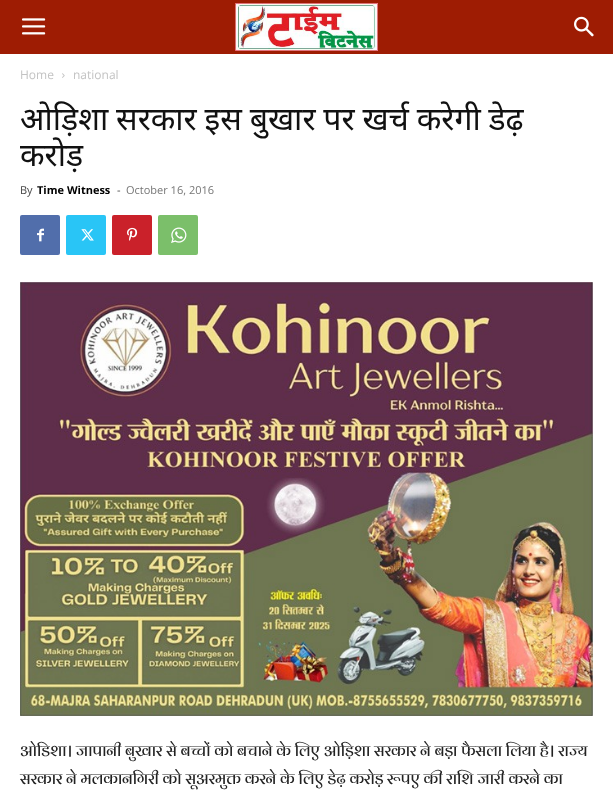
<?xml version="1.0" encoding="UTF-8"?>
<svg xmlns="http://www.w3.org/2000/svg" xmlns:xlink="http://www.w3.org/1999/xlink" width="613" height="807">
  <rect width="100%" height="100%" fill="#ffffff" />
  <rect width="613" height="54" fill="#9e1c03" />
  <image x="22" y="18" width="24" height="17" xlink:href="image1.png" />
  <image x="235" y="3" width="143" height="48" xlink:href="image2.png" />
  <image x="574" y="16" width="20" height="21" xlink:href="image3.png" />
  <image x="62" y="73" width="3" height="5" xlink:href="image4.png" />
  <rect x="20" y="215" width="40" height="40" rx="2" fill="#516eab" />
  <image x="37" y="228" width="7" height="14" xlink:href="image5.png" />
  <rect x="66" y="215" width="40" height="40" rx="2" fill="#29c5f6" />
  <image x="81" y="229" width="13" height="12" xlink:href="image6.png" />
  <rect x="112" y="215" width="40" height="40" rx="2" fill="#ca212a" />
  <image x="127" y="227" width="11" height="14" xlink:href="image7.png" />
  <rect x="158" y="215" width="40" height="40" rx="2" fill="#7bbf6a" />
  <image x="171" y="227" width="16" height="16" xlink:href="image8.png" />
  <image x="20" y="282" width="573" height="434" xlink:href="image9.png" />
  <text x="20" y="79" style="font-family: Open Sans; font-size: 12px; fill: #c3c3c3">Home</text>
  <text x="73" y="79" style="font-family: Open Sans; font-size: 12px; fill: #c3c3c3">national</text>
  <text x="20" y="130" word-spacing="-0.5" style="font-family: Noto Sans; font-size: 32px; fill: #111111">ओड़िशा सरकार इस बुखार पर खर्च करेगी डेढ़</text>
  <text x="20" y="166" style="font-family: Noto Sans; font-size: 32px; fill: #111111">करोड़</text>
  <text x="20" y="194" style="font-family: Open Sans; font-size: 11px; fill: #444444">By</text>
  <text x="37" y="194" style="font-family: Open Sans; font-size: 11px; font-weight: bold; fill: #000000">Time Witness</text>
  <text x="117" y="194" style="font-family: Open Sans; font-size: 11px; fill: #444444">-</text>
  <text x="126" y="194" style="font-family: Open Sans; font-size: 11px; fill: #767676">October 16, 2016</text>
  <text x="20" y="756" style="font-family: Arya; font-size: 16px; fill: #222222">ओडिशा। जापानी बुखार से बच्चों को बचाने के लिए ओड़िशा सरकार ने बड़ा फैसला लिया है। राज्य</text>
  <text x="20" y="784" style="font-family: Arya; font-size: 16px; fill: #222222">सरकार ने मलकानगिरी को सूअरमुक्त करने के लिए डेढ़ करोड़ रूपए की राशि जारी करने का</text>
</svg>
